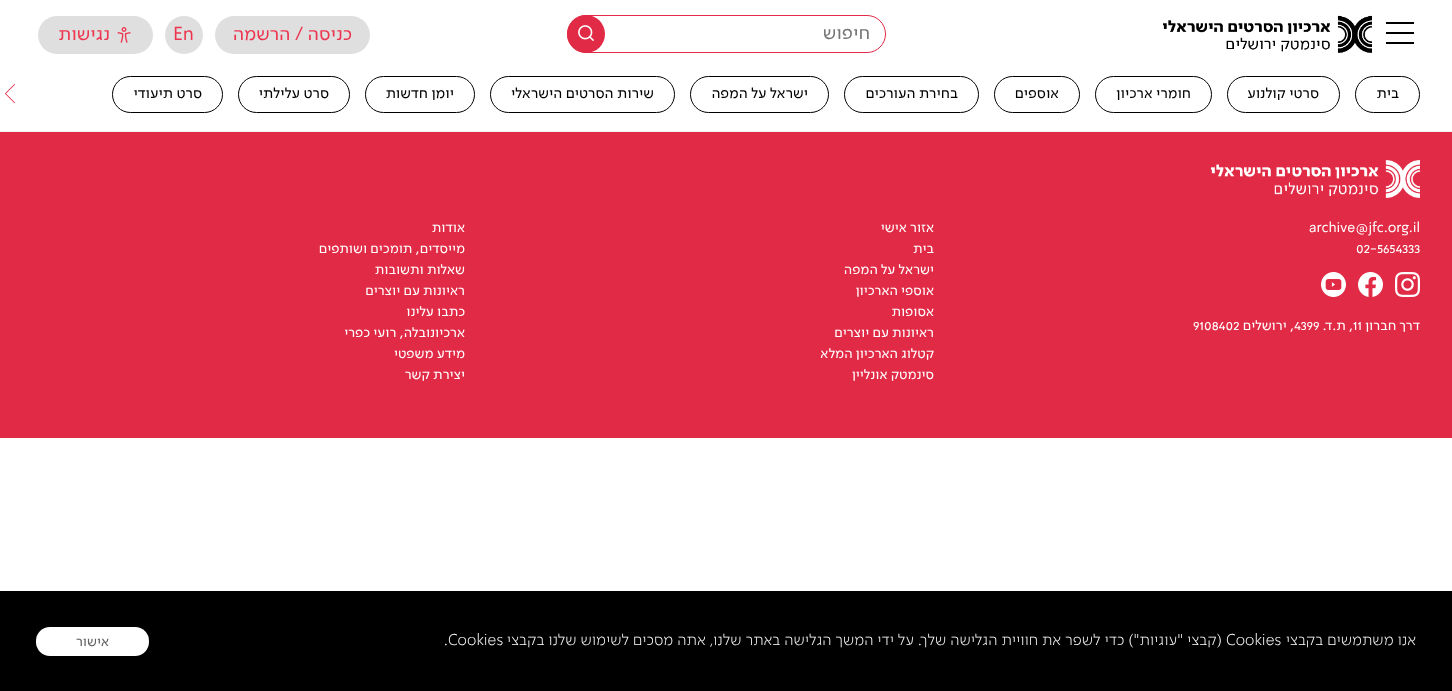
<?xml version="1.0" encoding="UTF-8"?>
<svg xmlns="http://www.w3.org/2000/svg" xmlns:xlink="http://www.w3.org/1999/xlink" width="1452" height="691">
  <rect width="100%" height="100%" fill="#ffffff" />
  <rect y="131" width="1452" height="1" fill="#f3f3f3" />
  <rect x="1386" y="22" width="28" height="2" fill="#000000" />
  <rect x="1386" y="32" width="28" height="2" fill="#000000" />
  <rect x="1386" y="42" width="28" height="2" fill="#000000" />
  <image x="1163" y="15" width="209" height="38" xlink:href="image1.png" />
  <rect x="567.5" y="15.5" width="318" height="37" rx="18.5" fill="none" stroke="#e12a45" />
  <circle cx="586" cy="34" r="19" fill="#e12a45" />
  <image x="578" y="25" width="16" height="16" xlink:href="image2.png" />
  <rect x="215" y="16" width="155" height="38" rx="19" fill="#dfdfdf" />
  <circle cx="184" cy="35" r="19" fill="#dfdfdf" />
  <rect x="38" y="16" width="115" height="38" rx="19" fill="#dfdfdf" />
  <image x="117" y="27" width="14" height="16" xlink:href="image3.png" />
  <rect x="1355.5" y="76.5" width="64" height="36" rx="18" fill="none" stroke="#000000" />
  <rect x="1227.5" y="76.5" width="112" height="36" rx="18" fill="none" stroke="#000000" />
  <rect x="1095.5" y="76.5" width="116" height="36" rx="18" fill="none" stroke="#000000" />
  <rect x="994.5" y="76.5" width="85" height="36" rx="18" fill="none" stroke="#000000" />
  <rect x="844.5" y="76.5" width="134" height="36" rx="18" fill="none" stroke="#000000" />
  <rect x="690.5" y="76.5" width="138" height="36" rx="18" fill="none" stroke="#000000" />
  <rect x="490.5" y="76.5" width="184" height="36" rx="18" fill="none" stroke="#000000" />
  <rect x="365.5" y="76.5" width="109" height="36" rx="18" fill="none" stroke="#000000" />
  <rect x="238.5" y="76.5" width="111" height="36" rx="18" fill="none" stroke="#000000" />
  <rect x="112.5" y="76.5" width="110" height="36" rx="18" fill="none" stroke="#000000" />
  <image x="5" y="84" width="10" height="19" xlink:href="image4.png" />
  <rect y="132" width="1452" height="306" fill="#e12a45" />
  <image x="1211" y="160" width="209" height="38" xlink:href="image5.png" />
  <image x="1395" y="272" width="25" height="25" xlink:href="image6.png" />
  <image x="1358" y="272" width="25" height="25" xlink:href="image7.png" />
  <image x="1321" y="272" width="25" height="25" xlink:href="image8.png" />
  <rect y="591" width="1452" height="100" fill="#000000" />
  <rect x="36" y="627" width="113" height="29" rx="14" fill="#ffffff" />
  <text x="870" y="39" style="font-family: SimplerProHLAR; font-size: 19px; direction: rtl; fill: #757575">חיפוש</text>
  <text x="352" y="40" style="font-family: SimplerProHLAR; font-size: 19px; direction: rtl; fill: #ed3550">כניסה / הרשמה</text>
  <text x="173" y="40" style="font-family: SimplerProHLAR; font-size: 19px; fill: #ed3550">En</text>
  <text x="110" y="40" style="font-family: SimplerProHLAR; font-size: 19px; direction: rtl; fill: #ed3550">נגישות</text>
  <text x="1399" y="98" style="font-family: SimplerProHLAR; font-size: 15px; direction: rtl; fill: #000000">בית</text>
  <text x="1319" y="98" style="font-family: SimplerProHLAR; font-size: 15px; direction: rtl; fill: #000000">סרטי קולנוע</text>
  <text x="1191" y="98" style="font-family: SimplerProHLAR; font-size: 15px; direction: rtl; fill: #000000">חומרי ארכיון</text>
  <text x="1059" y="98" style="font-family: SimplerProHLAR; font-size: 15px; direction: rtl; fill: #000000">אוספים</text>
  <text x="958" y="98" style="font-family: SimplerProHLAR; font-size: 15px; direction: rtl; fill: #000000">בחירת העורכים</text>
  <text x="808" y="98" style="font-family: SimplerProHLAR; font-size: 15px; direction: rtl; fill: #000000">ישראל על המפה</text>
  <text x="654" y="98" style="font-family: SimplerProHLAR; font-size: 15px; direction: rtl; fill: #000000">שירות הסרטים הישראלי</text>
  <text x="454" y="98" style="font-family: SimplerProHLAR; font-size: 15px; direction: rtl; fill: #000000">יומן חדשות</text>
  <text x="329" y="98" style="font-family: SimplerProHLAR; font-size: 15px; direction: rtl; fill: #000000">סרט עלילתי</text>
  <text x="202" y="98" style="font-family: SimplerProHLAR; font-size: 15px; direction: rtl; fill: #000000">סרט תיעודי</text>
  <text x="1309" y="232" style="font-family: SimplerProHLAR; font-size: 14px; fill: #ffffff">archive@jfc.org.il</text>
  <text x="1356" y="253" style="font-family: SimplerProHLAR; font-size: 14px; fill: #ffffff">02-5654333</text>
  <text x="1420" y="330" style="font-family: SimplerProHLAR; font-size: 14px; direction: rtl; fill: #ffffff">דרך חברון</text>
  <text x="1353" y="330" style="font-family: SimplerProHLAR; font-size: 14px; fill: #ffffff">11</text>
  <text x="1353" y="330" style="font-family: SimplerProHLAR; font-size: 14px; direction: rtl; fill: #ffffff">, ת.ד.</text>
  <text x="1294" y="330" style="font-family: SimplerProHLAR; font-size: 14px; fill: #ffffff">4399</text>
  <text x="1294" y="330" style="font-family: SimplerProHLAR; font-size: 14px; direction: rtl; fill: #ffffff">, ירושלים</text>
  <text x="1193" y="330" style="font-family: SimplerProHLAR; font-size: 14px; fill: #ffffff">9108402</text>
  <text x="934" y="232" style="font-family: SimplerProHLAR; font-size: 14px; direction: rtl; fill: #ffffff">אזור אישי</text>
  <text x="934" y="253" style="font-family: SimplerProHLAR; font-size: 14px; direction: rtl; fill: #ffffff">בית</text>
  <text x="934" y="274" style="font-family: SimplerProHLAR; font-size: 14px; direction: rtl; fill: #ffffff">ישראל על המפה</text>
  <text x="934" y="295" style="font-family: SimplerProHLAR; font-size: 14px; direction: rtl; fill: #ffffff">אוספי הארכיון</text>
  <text x="934" y="316" style="font-family: SimplerProHLAR; font-size: 14px; direction: rtl; fill: #ffffff">אסופות</text>
  <text x="934" y="337" style="font-family: SimplerProHLAR; font-size: 14px; direction: rtl; fill: #ffffff">ראיונות עם יוצרים</text>
  <text x="934" y="358" style="font-family: SimplerProHLAR; font-size: 14px; direction: rtl; fill: #ffffff">קטלוג הארכיון המלא</text>
  <text x="934" y="379" style="font-family: SimplerProHLAR; font-size: 14px; direction: rtl; fill: #ffffff">סינמטק אונליין</text>
  <text x="465" y="232" style="font-family: SimplerProHLAR; font-size: 14px; direction: rtl; fill: #ffffff">אודות</text>
  <text x="465" y="253" style="font-family: SimplerProHLAR; font-size: 14px; direction: rtl; fill: #ffffff">מייסדים, תומכים ושותפים</text>
  <text x="465" y="274" style="font-family: SimplerProHLAR; font-size: 14px; direction: rtl; fill: #ffffff">שאלות ותשובות</text>
  <text x="465" y="295" style="font-family: SimplerProHLAR; font-size: 14px; direction: rtl; fill: #ffffff">ראיונות עם יוצרים</text>
  <text x="465" y="316" style="font-family: SimplerProHLAR; font-size: 14px; direction: rtl; fill: #ffffff">כתבו עלינו</text>
  <text x="465" y="337" style="font-family: SimplerProHLAR; font-size: 14px; direction: rtl; fill: #ffffff">ארכיונובלה, רועי כפרי</text>
  <text x="465" y="358" style="font-family: SimplerProHLAR; font-size: 14px; direction: rtl; fill: #ffffff">מידע משפטי</text>
  <text x="465" y="379" style="font-family: SimplerProHLAR; font-size: 14px; direction: rtl; fill: #ffffff">יצירת קשר</text>
  <text x="1416" y="645" style="font-family: SimplerProHLAR; font-size: 16px; font-weight: 300; direction: rtl; fill: #ffffff">אנו משתמשים בקבצי</text>
  <text x="1226" y="645" style="font-family: SimplerProHLAR; font-size: 16px; font-weight: 300; fill: #ffffff">Cookies</text>
  <text x="1222" y="645" style="font-family: SimplerProHLAR; font-size: 16px; font-weight: 300; direction: rtl; fill: #ffffff">(קבצי "עוגיות") כדי לשפר את חוויית הגלישה שלך. על ידי המשך הגלישה באתר שלנו, אתה מסכים לשימוש שלנו בקבצי</text>
  <text x="444" y="645" style="font-family: SimplerProHLAR; font-size: 16px; font-weight: 300; fill: #ffffff">.Cookies</text>
  <text x="109" y="646" style="font-family: SimplerProHLAR; font-size: 14px; direction: rtl; fill: #626061">אישור</text>
</svg>
